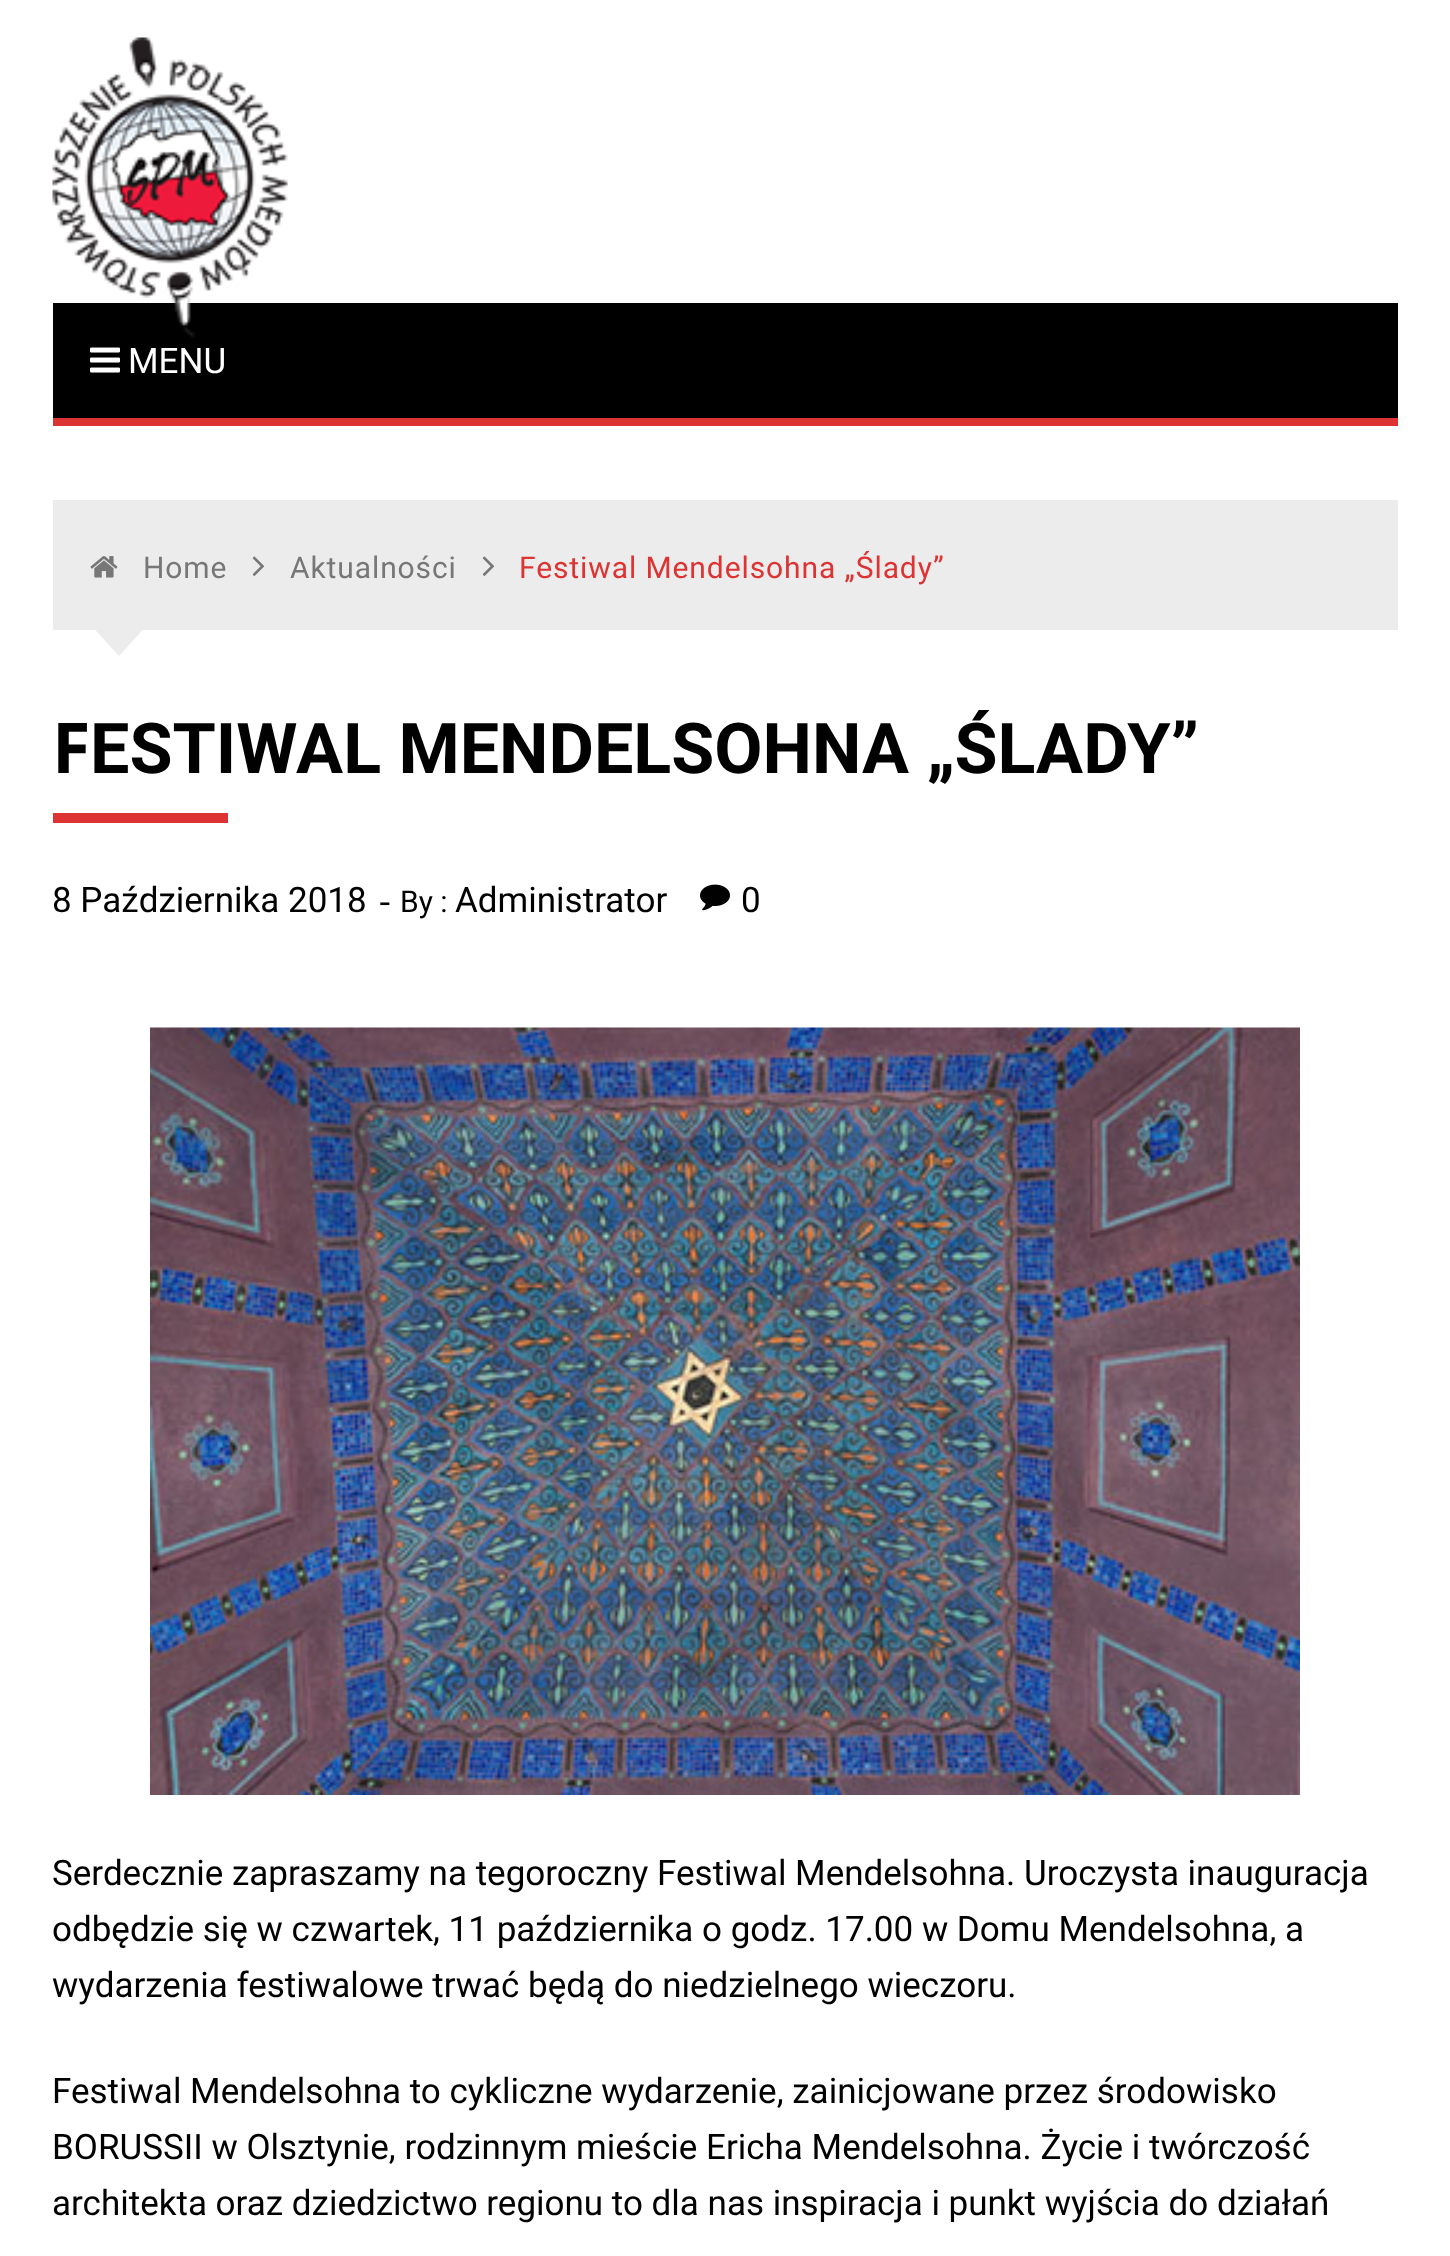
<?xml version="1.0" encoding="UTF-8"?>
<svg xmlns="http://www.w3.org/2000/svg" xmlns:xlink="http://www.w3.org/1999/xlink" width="1450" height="2256">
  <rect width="100%" height="100%" fill="#ffffff" />
  <rect x="53" y="303" width="1345" height="115" fill="#000000" />
  <image x="52" y="37" width="236" height="301" xlink:href="image1.png" />
  <rect x="53" y="418" width="1345" height="8" fill="#dd3333" />
  <image x="90" y="347" width="30" height="26" xlink:href="image2.png" />
  <rect x="53" y="500" width="1345" height="130" fill="#ececec" />
  <image x="90" y="556" width="28" height="22" xlink:href="image3.png" />
  <image x="252" y="556" width="13" height="20" xlink:href="image4.png" />
  <image x="482" y="556" width="13" height="20" xlink:href="image4.png" />
  <path d="M 89 623 h 60 l -30 33 z" fill="#ececec" />
  <rect x="53" y="813" width="175" height="10" fill="#dd3333" />
  <image x="700" y="884" width="30" height="27" xlink:href="image5.png" />
  <image x="150" y="1027" width="1150" height="768" xlink:href="image6.png" />
  <text x="128" y="373" style="font-family: Roboto; font-size: 35px; fill: #ffffff">MENU</text>
  <text x="143" y="578" style="font-family: Roboto; font-size: 30px; letter-spacing: 0.9px; fill: #777777">Home</text>
  <text x="290" y="578" style="font-family: Roboto; font-size: 30px; letter-spacing: 0.9px; fill: #777777">Aktualności</text>
  <text x="519" y="578" style="font-family: Roboto; font-size: 30px; letter-spacing: 0.9px; fill: #dd3333">Festiwal Mendelsohna „Ślady”</text>
  <text x="52" y="773" style="font-family: Noto Sans; font-size: 70px; font-weight: bold; fill: #010101">F</text>
  <text x="90" y="773" style="font-family: Roboto; font-size: 70px; font-weight: bold; fill: #010101">ESTIWAL MENDELSOHNA „ŚLADY”</text>
  <text x="52" y="912" style="font-family: Roboto; font-size: 35px; fill: #010101">8 Października 2018</text>
  <text x="379" y="912" style="font-family: Liberation Serif; font-size: 35px; fill: #010101">-</text>
  <text x="400" y="912" style="font-family: Roboto; font-size: 30px; fill: #010101">By :</text>
  <text x="455" y="912" style="font-family: Roboto; font-size: 35px; fill: #010101">Administrator</text>
  <text x="741" y="912" style="font-family: Roboto; font-size: 35px; fill: #010101">0</text>
  <text x="52" y="1885" style="font-family: Roboto; font-size: 35px; fill: #010101">Serdecznie zapraszamy na tegoroczny Festiwal Mendelsohna. Uroczysta inauguracja</text>
  <text x="52" y="1941" style="font-family: Roboto; font-size: 35px; fill: #010101">odbędzie się w czwartek, 11 października o godz. 17.00 w Domu Mendelsohna, a</text>
  <text x="52" y="1997" style="font-family: Roboto; font-size: 35px; fill: #010101">wydarzenia festiwalowe trwać będą do niedzielnego wieczoru.</text>
  <text x="52" y="2103" style="font-family: Roboto; font-size: 35px; fill: #010101">Festiwal Mendelsohna to cykliczne wydarzenie, zainicjowane przez środowisko</text>
  <text x="52" y="2159" style="font-family: Roboto; font-size: 35px; fill: #010101">BORUSSII w Olsztynie, rodzinnym mieście Ericha Mendelsohna. Życie i twórczość</text>
  <text x="52" y="2215" style="font-family: Roboto; font-size: 35px; fill: #010101">architekta oraz dziedzictwo regionu to dla nas inspiracja i punkt wyjścia do działań</text>
</svg>
